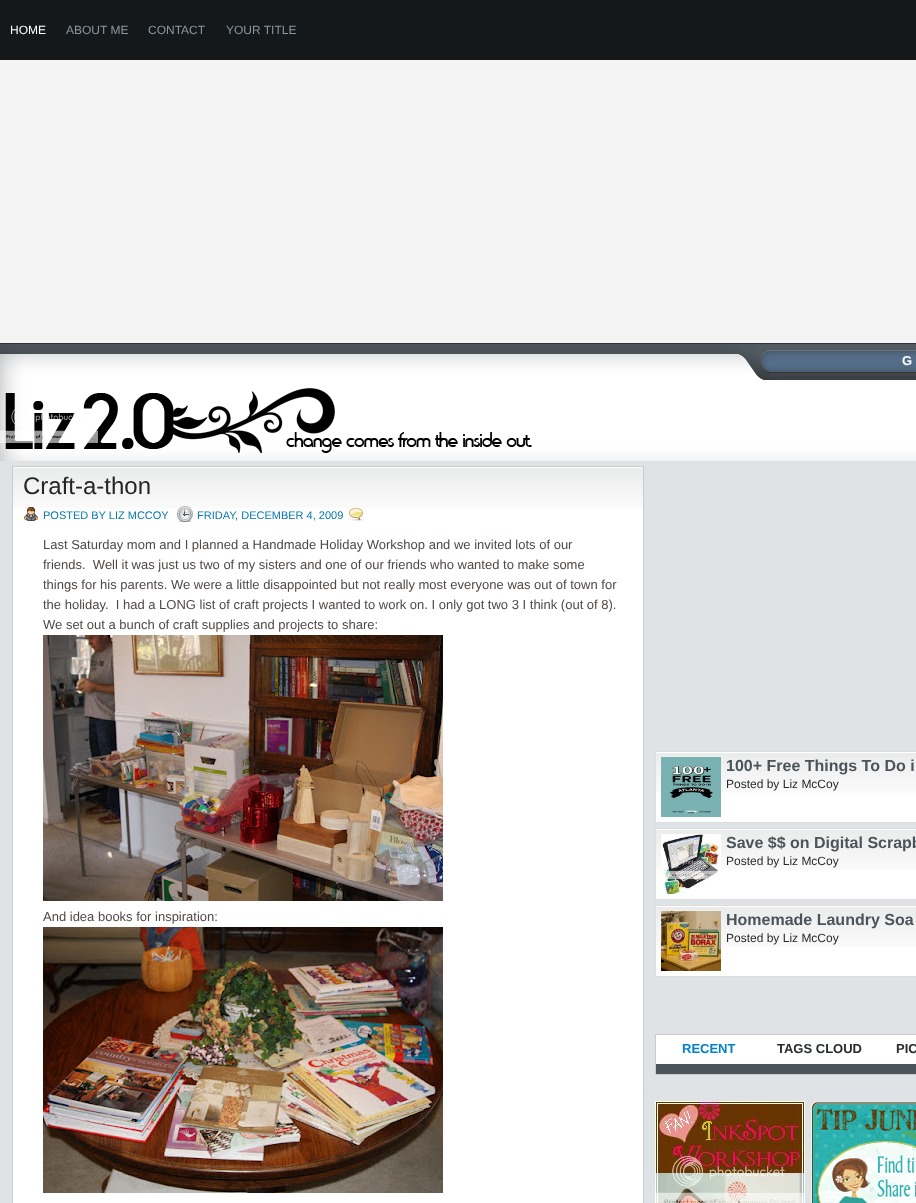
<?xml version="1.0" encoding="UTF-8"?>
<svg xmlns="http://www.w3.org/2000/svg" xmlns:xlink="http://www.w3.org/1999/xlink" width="916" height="1203">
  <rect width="100%" height="100%" fill="#f4f4f4" />
  <rect width="916" height="60" fill="#14181a" />
  <image x="0" y="343" width="916" height="118" xlink:href="image1.png" />
  <image x="0" y="388" width="532" height="65" xlink:href="image2.png" />
  <rect y="461" width="916" height="742" fill="#dfe3e6" />
  <rect x="13" y="467" width="630" height="736" fill="#ffffff" />
  <image x="13" y="468" width="630" height="40" xlink:href="image3.png" />
  <rect x="12.5" y="466.5" width="631" height="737" fill="none" stroke="#cccccc" />
  <image x="24" y="507" width="14" height="14" xlink:href="image4.png" />
  <image x="177" y="506" width="16" height="16" xlink:href="image5.png" />
  <image x="349" y="508" width="14" height="13" xlink:href="image6.png" />
  <image x="43" y="635" width="400" height="266" xlink:href="image7.png" />
  <image x="43" y="927" width="400" height="266" xlink:href="image8.png" />
  <rect x="656" y="752" width="260" height="70" fill="#ffffff" />
  <image x="656" y="753" width="260" height="40" xlink:href="image9.png" />
  <rect x="655.5" y="751.5" width="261" height="71" fill="none" stroke="#dddddd" />
  <image x="661" y="757" width="60" height="60" xlink:href="image10.png" />
  <rect x="656" y="829" width="260" height="70" fill="#ffffff" />
  <image x="656" y="830" width="260" height="40" xlink:href="image9.png" />
  <rect x="655.5" y="828.5" width="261" height="71" fill="none" stroke="#dddddd" />
  <image x="661" y="834" width="60" height="60" xlink:href="image11.png" />
  <rect x="656" y="906" width="260" height="70" fill="#ffffff" />
  <image x="656" y="907" width="260" height="40" xlink:href="image9.png" />
  <rect x="655.5" y="905.5" width="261" height="71" fill="none" stroke="#dddddd" />
  <image x="661" y="911" width="60" height="60" xlink:href="image12.png" />
  <rect x="656" y="1035" width="260" height="29" fill="#ffffff" />
  <rect x="655.5" y="1034.5" width="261" height="40" fill="none" stroke="#cccccc" />
  <rect x="656" y="1064" width="260" height="10" fill="#4b545b" />
  <image x="655" y="1101" width="150" height="102" xlink:href="image13.png" />
  <image x="811" y="1102" width="105" height="101" xlink:href="image14.png" />
  <text x="10" y="34" style="font-family: Liberation Sans; font-size: 12px; fill: #ffffff">HOME</text>
  <text x="66" y="34" style="font-family: Liberation Sans; font-size: 12px; fill: #8b979f">ABOUT ME</text>
  <text x="148" y="34" style="font-family: Liberation Sans; font-size: 12px; fill: #8b979f">CONTACT</text>
  <text x="226" y="34" style="font-family: Liberation Sans; font-size: 12px; fill: #8b979f">YOUR TITLE</text>
  <text x="902" y="365" style="font-family: Liberation Sans; font-size: 13px; font-weight: bold; fill: #ffffff">G</text>
  <text x="23" y="494" style="font-family: Liberation Sans; font-size: 24px; fill: #252525">Craft-a-thon</text>
  <text x="43" y="519" style="font-family: Liberation Sans; font-size: 11px; fill: #0578ad">POSTED BY LIZ MCCOY</text>
  <text x="197" y="519" style="font-family: Liberation Sans; font-size: 11px; fill: #0578ad">FRIDAY, DECEMBER 4, 2009</text>
  <text x="43" y="549" style="font-family: Liberation Sans; font-size: 13px; fill: #504945">Last Saturday mom and I planned a Handmade Holiday Workshop and we invited lots of our</text>
  <text x="43" y="569" style="font-family: Liberation Sans; font-size: 13px; fill: #504945" xml:space="preserve">friends.  Well it was just us two of my sisters and one of our friends who wanted to make some</text>
  <text x="43" y="589" style="font-family: Liberation Sans; font-size: 13px; fill: #504945">things for his parents. We were a little disappointed but not really most everyone was out of town for</text>
  <text x="43" y="609" style="font-family: Liberation Sans; font-size: 13px; fill: #504945" xml:space="preserve">the holiday.  I had a LONG list of craft projects I wanted to work on. I only got two 3 I think (out of 8).</text>
  <text x="43" y="629" style="font-family: Liberation Sans; font-size: 13px; fill: #504945">We set out a bunch of craft supplies and projects to share:</text>
  <text x="43" y="921" style="font-family: Liberation Sans; font-size: 13px; fill: #504945">And idea books for inspiration:</text>
  <text x="726" y="771" style="font-family: Liberation Sans; font-size: 16px; font-weight: bold; fill: #4b545b">100+ Free Things To Do i</text>
  <text x="726" y="788" style="font-family: Liberation Sans; font-size: 12px; fill: #262b2f">Posted by Liz McCoy</text>
  <text x="726" y="848" style="font-family: Liberation Sans; font-size: 16px; font-weight: bold; fill: #4b545b">Save $$ on Digital Scrapb</text>
  <text x="726" y="865" style="font-family: Liberation Sans; font-size: 12px; fill: #262b2f">Posted by Liz McCoy</text>
  <text x="726" y="925" style="font-family: Liberation Sans; font-size: 16px; font-weight: bold; fill: #4b545b">Homemade Laundry Soa</text>
  <text x="726" y="942" style="font-family: Liberation Sans; font-size: 12px; fill: #262b2f">Posted by Liz McCoy</text>
  <text x="682" y="1053" style="font-family: Liberation Sans; font-size: 13px; font-weight: bold; fill: #0283c7">RECENT</text>
  <text x="777" y="1053" style="font-family: Liberation Sans; font-size: 13px; font-weight: bold; fill: #262b2f">TAGS CLOUD</text>
  <text x="896" y="1053" style="font-family: Liberation Sans; font-size: 13px; font-weight: bold; fill: #262b2f">PIC</text>
</svg>
